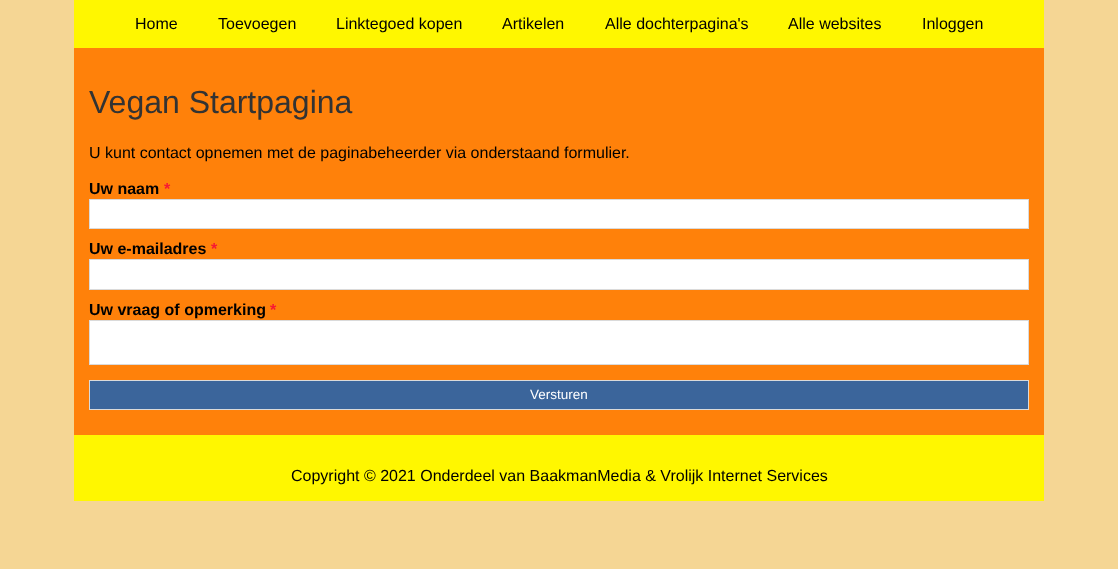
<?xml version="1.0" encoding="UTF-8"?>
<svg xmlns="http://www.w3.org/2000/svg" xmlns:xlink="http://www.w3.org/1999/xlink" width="1118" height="569">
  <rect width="100%" height="100%" fill="#f5d694" />
  <rect x="74" width="970" height="48" fill="#fff700" />
  <rect x="74" y="48" width="970" height="387" fill="#ff810a" />
  <rect x="89.5" y="199.5" width="939" height="29" fill="#ffffff" stroke="#dadada" />
  <rect x="89.5" y="259.5" width="939" height="30" fill="#ffffff" stroke="#dadada" />
  <rect x="89.5" y="320.5" width="939" height="44" fill="#ffffff" stroke="#dadada" />
  <rect x="89.5" y="380.5" width="939" height="29" fill="#3b659b" stroke="#dadada" />
  <rect x="74" y="435" width="970" height="66" fill="#fff700" />
  <text x="135" y="29" style="font-family: Liberation Sans; font-size: 16px; fill: #000000">Home</text>
  <text x="218" y="29" style="font-family: Liberation Sans; font-size: 16px; fill: #000000">Toevoegen</text>
  <text x="336" y="29" style="font-family: Liberation Sans; font-size: 16px; fill: #000000">Linktegoed kopen</text>
  <text x="502" y="29" style="font-family: Liberation Sans; font-size: 16px; fill: #000000">Artikelen</text>
  <text x="605" y="29" style="font-family: Liberation Sans; font-size: 16px; fill: #000000">Alle dochterpagina's</text>
  <text x="788" y="29" style="font-family: Liberation Sans; font-size: 16px; fill: #000000">Alle websites</text>
  <text x="922" y="29" style="font-family: Liberation Sans; font-size: 16px; fill: #000000">Inloggen</text>
  <text x="89" y="113" style="font-family: Liberation Sans; font-size: 32px; fill: #333333">Vegan Startpagina</text>
  <text x="89" y="158" style="font-family: Liberation Sans; font-size: 16px; fill: #000000">U kunt contact opnemen met de paginabeheerder via onderstaand formulier.</text>
  <text x="89" y="194" style="font-family: Liberation Sans; font-size: 16px; font-weight: bold; fill: #000000">Uw naam</text>
  <text x="164" y="194" style="font-family: Liberation Sans; font-size: 16px; font-weight: bold; fill: #f71735">*</text>
  <text x="89" y="254" style="font-family: Liberation Sans; font-size: 16px; font-weight: bold; fill: #000000">Uw e-mailadres</text>
  <text x="211" y="254" style="font-family: Liberation Sans; font-size: 16px; font-weight: bold; fill: #f71735">*</text>
  <text x="89" y="315" style="font-family: Liberation Sans; font-size: 16px; font-weight: bold; fill: #000000">Uw vraag of opmerking</text>
  <text x="270" y="315" style="font-family: Liberation Sans; font-size: 16px; font-weight: bold; fill: #f71735">*</text>
  <text x="530" y="399" style="font-family: Liberation Sans; font-size: 13.5px; fill: #ffffff">Versturen</text>
  <text x="291" y="481" style="font-family: Liberation Sans; font-size: 16px; fill: #000000">Copyright © 2021 Onderdeel van BaakmanMedia &amp; Vrolijk Internet Services</text>
</svg>
